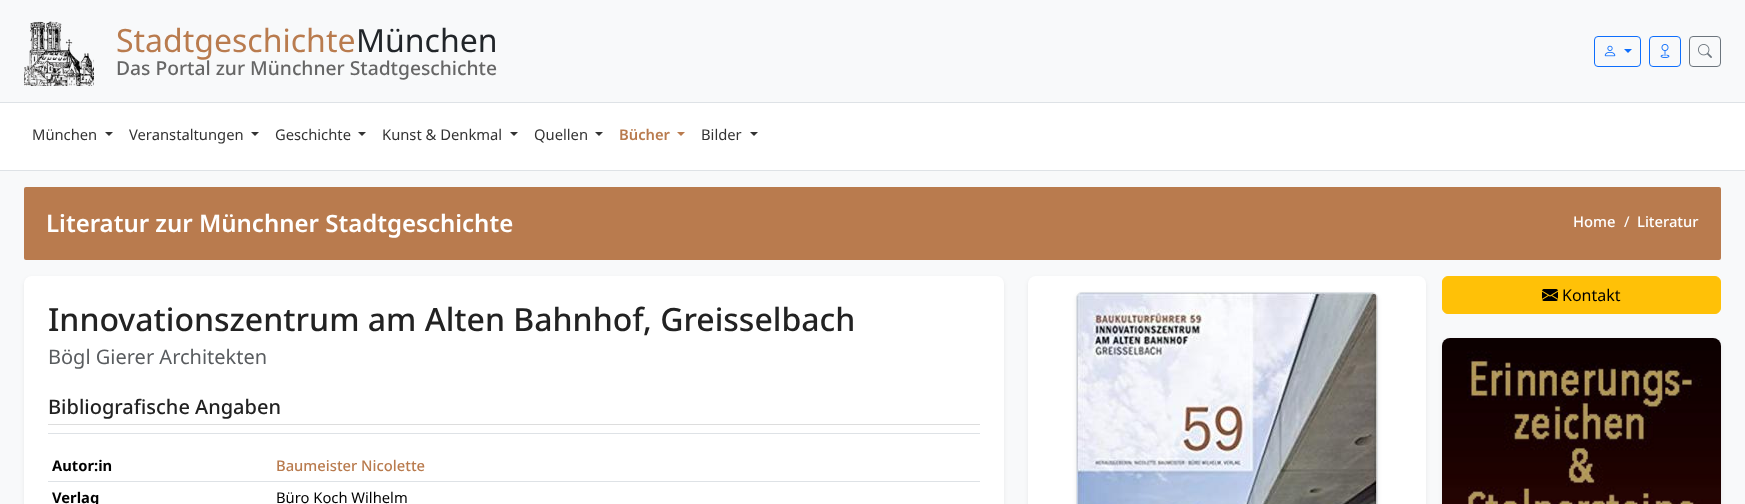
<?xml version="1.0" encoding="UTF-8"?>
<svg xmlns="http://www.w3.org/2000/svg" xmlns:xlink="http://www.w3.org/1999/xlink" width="1745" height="504">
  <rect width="100%" height="100%" fill="#f8f9fa" />
  <rect y="102" width="1745" height="1" fill="#dee2e6" />
  <image x="24" y="21" width="70" height="65" xlink:href="image1.png" />
  <rect x="1594.5" y="36.5" width="46" height="30" rx="3.5" fill="none" stroke="#0d6efd" />
  <image x="1604" y="45" width="12" height="12" xlink:href="image2.png" />
  <path d="M 1624 49 h 8 l -4 4 z" fill="#0d6efd" />
  <rect x="1649.5" y="36.5" width="31" height="30" rx="3.5" fill="none" stroke="#0d6efd" />
  <image x="1660" y="44" width="10" height="14" xlink:href="image3.png" />
  <rect x="1689.5" y="36.5" width="31" height="30" rx="3.5" fill="none" stroke="#6c757d" />
  <image x="1698" y="44" width="14" height="14" xlink:href="image4.png" />
  <rect y="103" width="1745" height="67" fill="#ffffff" />
  <rect y="170" width="1745" height="1" fill="#dee2e6" />
  <path d="M 105 132 h 8 l -4 4 z" fill="#333333" />
  <path d="M 251 132 h 8 l -4 4 z" fill="#333333" />
  <path d="M 358 132 h 8 l -4 4 z" fill="#333333" />
  <path d="M 510 132 h 8 l -4 4 z" fill="#333333" />
  <path d="M 595 132 h 8 l -4 4 z" fill="#333333" />
  <path d="M 677 132 h 8 l -4 4 z" fill="#b97b4e" />
  <path d="M 750 132 h 8 l -4 4 z" fill="#333333" />
  <rect x="24" y="187" width="1697" height="73" rx="2" fill="#b97b4e" />
  <rect x="1028" y="278" width="398" height="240" rx="8" fill="#000000" fill-opacity="0.07" filter="blur(2px)" />
  <rect x="1028" y="276" width="398" height="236" rx="8" fill="#ffffff" />
  <rect x="1076" y="294" width="302" height="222" rx="6" fill="#000000" fill-opacity="0.07" filter="blur(2px)" />
  <rect x="1076.5" y="292.5" width="301" height="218" rx="5.5" fill="none" stroke="#dee2e6" />
  <image x="1077" y="293" width="300" height="211" xlink:href="image5.png" />
  <rect x="1442.5" y="276.5" width="278" height="37" rx="5.5" fill="#ffc107" stroke="#ffc107" />
  <image x="1542" y="289" width="16" height="12" xlink:href="image6.png" />
  <rect x="1442" y="340" width="279" height="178" rx="8" fill="#000000" fill-opacity="0.07" filter="blur(2px)" />
  <image x="1442" y="338" width="279" height="166" xlink:href="image7.png" />
  <rect x="24" y="278" width="980" height="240" rx="8" fill="#000000" fill-opacity="0.07" filter="blur(2px)" />
  <rect x="24" y="276" width="980" height="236" rx="8" fill="#ffffff" />
  <rect x="48" y="433" width="932" height="1" fill="#dee2e6" />
  <rect x="48" y="424" width="932" height="1" fill="#dddddd" />
  <rect x="48" y="481" width="932" height="1" fill="#dee2e6" />
  <text x="116" y="52" style="font-family: Noto Sans; font-size: 32px; fill: #b97b4e">Stadtgeschichte</text>
  <text x="356" y="52" style="font-family: Noto Sans; font-size: 32px; fill: #212529">München</text>
  <text x="116" y="75" style="font-family: Noto Sans; font-size: 19.25px; font-weight: 500; fill: #666666">Das Portal zur Münchner Stadtgeschichte</text>
  <text x="32" y="140" style="font-family: Noto Sans; font-size: 14.75px; fill: #333333">München</text>
  <text x="129" y="140" style="font-family: Noto Sans; font-size: 14.75px; fill: #333333">Veranstaltungen</text>
  <text x="275" y="140" style="font-family: Noto Sans; font-size: 14.75px; fill: #333333">Geschichte</text>
  <text x="382" y="140" style="font-family: Noto Sans; font-size: 14.75px; fill: #333333">Kunst &amp; Denkmal</text>
  <text x="534" y="140" style="font-family: Noto Sans; font-size: 14.75px; fill: #333333">Quellen</text>
  <text x="619" y="140" style="font-family: Noto Sans; font-size: 14.75px; font-weight: 600; fill: #b97b4e">Bücher</text>
  <text x="701" y="140" style="font-family: Noto Sans; font-size: 14.75px; fill: #333333">Bilder</text>
  <text x="46" y="232" style="font-family: Noto Sans; font-size: 24px; font-weight: 600; fill: #ffffff">Literatur zur Münchner Stadtgeschichte</text>
  <text x="1573" y="227" style="font-family: Noto Sans; font-size: 14.75px; font-weight: 500; fill: #ffffff">Home</text>
  <text x="1624" y="227" style="font-family: Noto Sans; font-size: 14.75px; fill: #ffffff">/</text>
  <text x="1637" y="227" style="font-family: Noto Sans; font-size: 14.75px; font-weight: 500; fill: #ffffff">Literatur</text>
  <text x="1562" y="301" style="font-family: Noto Sans; font-size: 16px; fill: #000000">Kontakt</text>
  <text x="48" y="331" style="font-family: Noto Sans; font-size: 32px; font-weight: 500; fill: #222222">Innovationszentrum am Alten Bahnhof, Greisselbach</text>
  <text x="48" y="364" style="font-family: Noto Sans; font-size: 20px; fill: #595c5f">Bögl Gierer Architekten</text>
  <text x="48" y="414" style="font-family: Noto Sans; font-size: 20px; font-weight: 500; fill: #222222">Bibliografische Angaben</text>
  <text x="52" y="471" style="font-family: Noto Sans; font-size: 14.75px; font-weight: bold; fill: #000000">Autor:in</text>
  <text x="276" y="471" style="font-family: Noto Sans; font-size: 14.75px; font-weight: 500; fill: #b97b4e">Baumeister Nicolette</text>
  <text x="52" y="503" style="font-family: Noto Sans; font-size: 14.75px; font-weight: bold; fill: #000000">Verlag</text>
  <text x="276" y="503" style="font-family: Noto Sans; font-size: 14.75px; fill: #000000">Büro Koch Wilhelm</text>
</svg>
